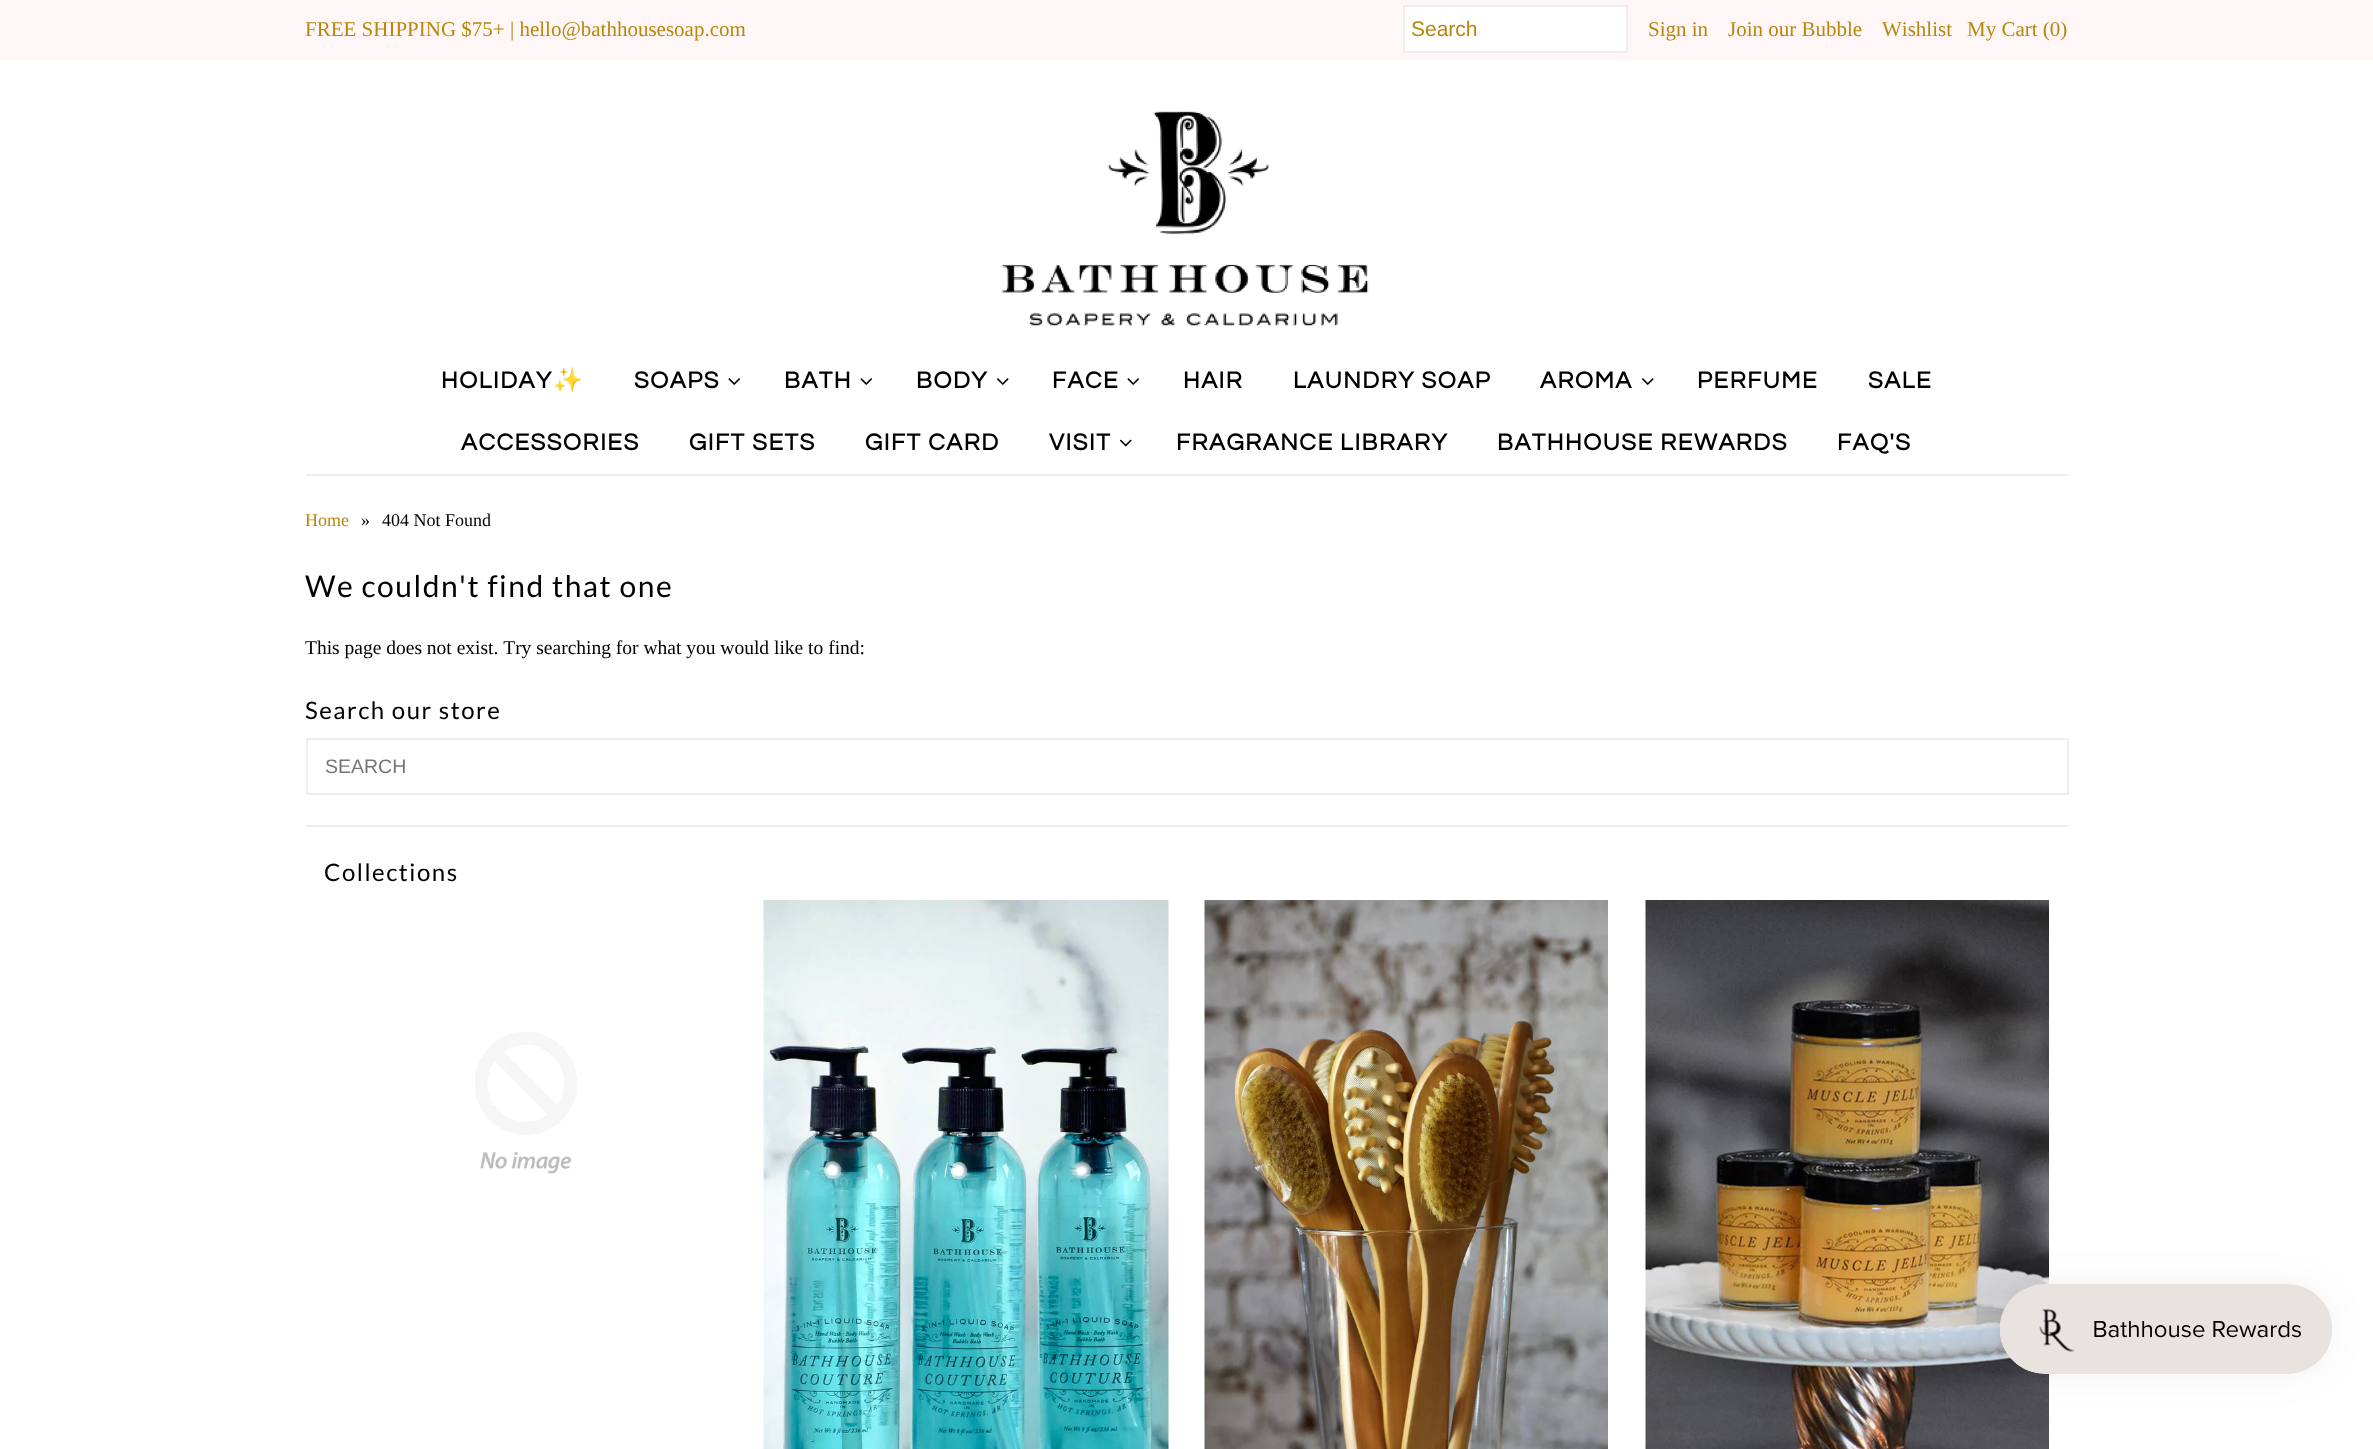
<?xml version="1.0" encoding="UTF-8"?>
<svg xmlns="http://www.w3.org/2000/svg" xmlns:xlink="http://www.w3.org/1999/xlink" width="2373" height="1449">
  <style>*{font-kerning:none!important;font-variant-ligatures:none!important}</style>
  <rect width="100%" height="100%" fill="#ffffff" />
  <rect width="2373" height="60" fill="#fff7f7" />
  <rect x="1404" y="6" width="223" height="46" fill="#ffffff" stroke="#eeeeee" stroke-width="2" />
  <image x="1001" y="111" width="368" height="215" xlink:href="image1.png" />
  <image x="728" y="378" width="12" height="7" xlink:href="image2.png" />
  <image x="860" y="378" width="12" height="7" xlink:href="image2.png" />
  <image x="997" y="378" width="12" height="7" xlink:href="image3.png" />
  <image x="1127" y="378" width="12" height="7" xlink:href="image2.png" />
  <image x="1642" y="378" width="12" height="7" xlink:href="image3.png" />
  <image x="1119" y="439" width="13" height="8" xlink:href="image4.png" />
  <rect x="306" y="474" width="1763" height="2" fill="#eeeeee" />
  <rect x="306" y="825" width="1763" height="2" fill="#eeeeee" />
  <rect x="307" y="739" width="1761" height="55" fill="none" stroke="#eeeeee" stroke-width="2" />
  <image x="475" y="1032" width="102" height="142" xlink:href="image5.png" />
  <image x="763" y="900" width="406" height="549" xlink:href="image6.png" />
  <image x="1204" y="900" width="404" height="549" xlink:href="image7.png" />
  <image x="1645" y="900" width="404" height="549" xlink:href="image8.png" />
  <rect x="2000" y="1284" width="333" height="90" rx="45" fill="#000000" fill-opacity="0.05" filter="blur(19px)" />
  <image x="2000" y="1284" width="332" height="90" xlink:href="image9.png" />
  <text x="305" y="36" style="font-family: Liberation Serif; font-size: 21px; fill: #b8860b">FREE SHIPPING $75+ | hello@bathhousesoap.com</text>
  <text x="1411" y="36" style="font-family: Liberation Sans; font-size: 21px; fill: #b8860b">Search</text>
  <text x="1648" y="36" style="font-family: Liberation Serif; font-size: 21px; fill: #b8860b">Sign in</text>
  <text x="1728" y="36" style="font-family: Liberation Serif; font-size: 21px; fill: #b8860b">Join our Bubble</text>
  <text x="1882" y="36" style="font-family: Liberation Serif; font-size: 21px; fill: #b8860b">Wishlist</text>
  <text x="1967" y="36" style="font-family: Liberation Serif; font-size: 21px; fill: #b8860b">My Cart (0)</text>
  <text x="441" y="388" style="font-family: Questrial; font-size: 24px; font-weight: bold; letter-spacing: 1.5px; fill: #000000">HOLIDAY</text>
  <text x="553" y="388" style="font-family: Noto Color Emoji; font-size: 24px; font-weight: bold; letter-spacing: 1.5px; fill: #000000">✨</text>
  <text x="634" y="388" style="font-family: Questrial; font-size: 24px; font-weight: bold; letter-spacing: 1.5px; fill: #000000">SOAPS</text>
  <text x="784" y="388" style="font-family: Questrial; font-size: 24px; font-weight: bold; letter-spacing: 1.5px; fill: #000000">BATH</text>
  <text x="916" y="388" style="font-family: Questrial; font-size: 24px; font-weight: bold; letter-spacing: 1.5px; fill: #000000">BODY</text>
  <text x="1052" y="388" style="font-family: Questrial; font-size: 24px; font-weight: bold; letter-spacing: 1.5px; fill: #000000">FACE</text>
  <text x="1183" y="388" style="font-family: Questrial; font-size: 24px; font-weight: bold; letter-spacing: 1.5px; fill: #000000">HAIR</text>
  <text x="1293" y="388" style="font-family: Questrial; font-size: 24px; font-weight: bold; letter-spacing: 1.5px; fill: #000000">LAUNDRY SOAP</text>
  <text x="1540" y="388" style="font-family: Questrial; font-size: 24px; font-weight: bold; letter-spacing: 1.5px; fill: #000000">AROMA</text>
  <text x="1697" y="388" style="font-family: Questrial; font-size: 24px; font-weight: bold; letter-spacing: 1.5px; fill: #000000">PERFUME</text>
  <text x="1868" y="388" style="font-family: Questrial; font-size: 24px; font-weight: bold; letter-spacing: 1.5px; fill: #000000">SALE</text>
  <text x="461" y="450" style="font-family: Questrial; font-size: 24px; font-weight: bold; letter-spacing: 1.5px; fill: #000000">ACCESSORIES</text>
  <text x="689" y="450" style="font-family: Questrial; font-size: 24px; font-weight: bold; letter-spacing: 1.5px; fill: #000000">GIFT SETS</text>
  <text x="865" y="450" style="font-family: Questrial; font-size: 24px; font-weight: bold; letter-spacing: 1.5px; fill: #000000">GIFT CARD</text>
  <text x="1049" y="450" style="font-family: Questrial; font-size: 24px; font-weight: bold; letter-spacing: 1.5px; fill: #000000">VISIT</text>
  <text x="1176" y="450" style="font-family: Questrial; font-size: 24px; font-weight: bold; letter-spacing: 1.5px; fill: #000000">FRAGRANCE LIBRARY</text>
  <text x="1497" y="450" style="font-family: Questrial; font-size: 24px; font-weight: bold; letter-spacing: 1.5px; fill: #000000">BATHHOUSE REWARDS</text>
  <text x="1837" y="450" style="font-family: Questrial; font-size: 24px; font-weight: bold; letter-spacing: 1.5px; fill: #000000">FAQ'S</text>
  <text x="305" y="526" style="font-family: Liberation Serif; font-size: 18px; fill: #b8860b">Home</text>
  <text x="361" y="526" style="font-family: Liberation Serif; font-size: 18px; fill: #000000">»</text>
  <text x="382" y="526" style="font-family: Liberation Serif; font-size: 18px; fill: #000000">404 Not Found</text>
  <text x="305" y="597" style="font-family: Lato; font-size: 30px; letter-spacing: 1.5px; fill: #000000">We couldn't find that one</text>
  <text x="305" y="654" style="font-family: Liberation Serif; font-size: 19.5px; fill: #000000">This page does not exist. Try searching for what you would like to find:</text>
  <text x="305" y="719" style="font-family: Lato; font-size: 24px; letter-spacing: 1.5px; fill: #000000">Search our store</text>
  <text x="325" y="773" style="font-family: Liberation Sans; font-size: 19.5px; fill: #757575">SEARCH</text>
  <text x="324" y="881" style="font-family: Lato; font-size: 24px; letter-spacing: 1.5px; fill: #000000">Collections</text>
</svg>
